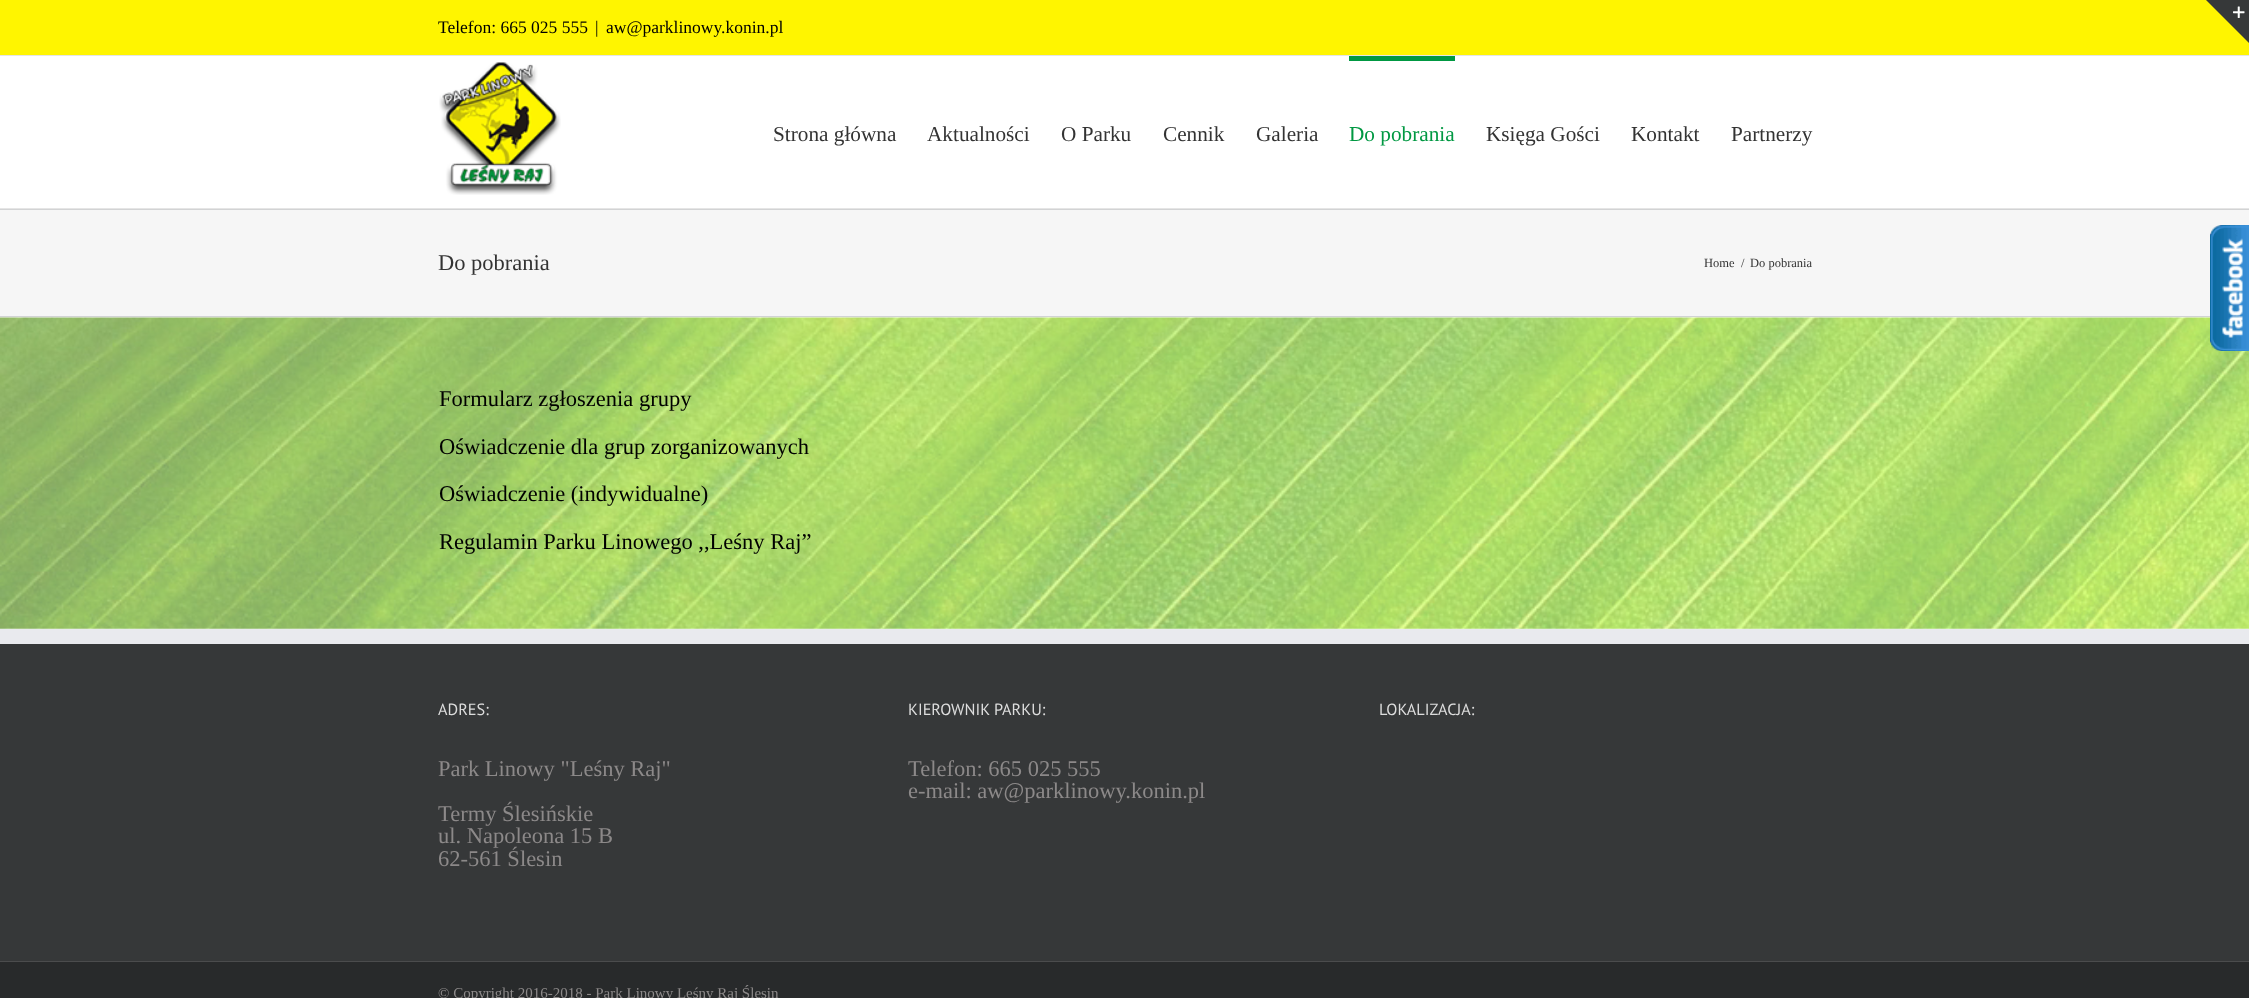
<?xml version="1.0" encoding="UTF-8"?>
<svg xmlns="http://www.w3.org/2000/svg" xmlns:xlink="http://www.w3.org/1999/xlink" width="2249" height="998">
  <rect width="100%" height="100%" fill="#ffffff" />
  <rect width="2249" height="55" fill="#fff500" />
  <rect y="55" width="2249" height="1" fill="#e5e5e5" />
  <rect y="208" width="2249" height="1" fill="#e5e5e5" />
  <image x="439" y="62" width="122" height="133" xlink:href="image1.png" />
  <rect x="1349" y="56" width="106" height="5" fill="#009842" />
  <path d="M 2206 0 h 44 v 44 z" fill="#363839" />
  <image x="2233" y="6" width="12" height="12" xlink:href="image2.png" />
  <rect y="210" width="2249" height="108" fill="#f6f6f6" />
  <rect y="209" width="2249" height="1" fill="#d2d3d4" />
  <rect y="316" width="2210" height="1" fill="#d2d3d4" />
  <image x="0" y="317" width="2249" height="312" xlink:href="image3.png" />
  <rect y="644" width="2249" height="317" fill="#363839" />
  <rect y="629" width="2249" height="15" fill="#e9eaee" />
  <rect y="962" width="2249" height="36" fill="#282a2b" />
  <rect y="961" width="2249" height="1" fill="#4b4c4d" />
  <image x="2210" y="225" width="39" height="126" xlink:href="image4.png" />
  <text x="438" y="33" style="font-family: Liberation Serif; font-size: 17.5px; fill: #000000">Telefon: 665 025 555</text>
  <text x="595" y="33" style="font-family: Liberation Serif; font-size: 17.5px; fill: #000000">|</text>
  <text x="606" y="33" style="font-family: Liberation Serif; font-size: 17.5px; fill: #000000">aw@parklinowy.konin.pl</text>
  <text x="773" y="141" style="font-family: Liberation Serif; font-size: 21.25px; fill: #333333">Strona główna</text>
  <text x="927" y="141" style="font-family: Liberation Serif; font-size: 21.25px; fill: #333333">Aktualności</text>
  <text x="1061" y="141" style="font-family: Liberation Serif; font-size: 21.25px; fill: #333333">O Parku</text>
  <text x="1163" y="141" style="font-family: Liberation Serif; font-size: 21.25px; fill: #333333">Cennik</text>
  <text x="1256" y="141" style="font-family: Liberation Serif; font-size: 21.25px; fill: #333333">Galeria</text>
  <text x="1349" y="141" style="font-family: Liberation Serif; font-size: 21.25px; fill: #009842">Do pobrania</text>
  <text x="1486" y="141" style="font-family: Liberation Serif; font-size: 21.25px; fill: #333333">Księga Gości</text>
  <text x="1631" y="141" style="font-family: Liberation Serif; font-size: 21.25px; fill: #333333">Kontakt</text>
  <text x="1731" y="141" style="font-family: Liberation Serif; font-size: 21.25px; fill: #333333">Partnerzy</text>
  <text x="438" y="270" style="font-family: Liberation Serif; font-size: 22.5px; fill: #333333">Do pobrania</text>
  <text x="1704" y="267" style="font-family: Liberation Serif; font-size: 12.5px; fill: #333333">Home</text>
  <text x="1741" y="267" style="font-family: Liberation Serif; font-size: 12.5px; fill: #333333">/</text>
  <text x="1750" y="267" style="font-family: Liberation Serif; font-size: 12.5px; fill: #333333">Do pobrania</text>
  <text x="439" y="406" style="font-family: Liberation Serif; font-size: 22.5px; fill: #000000">Formularz zgłoszenia grupy</text>
  <text x="439" y="454" style="font-family: Liberation Serif; font-size: 22.5px; fill: #000000">Oświadczenie dla grup zorganizowanych</text>
  <text x="439" y="501" style="font-family: Liberation Serif; font-size: 22.5px; fill: #000000">Oświadczenie (indywidualne)</text>
  <text x="439" y="549" style="font-family: Liberation Serif; font-size: 22.5px; fill: #000000">Regulamin Parku Linowego ,,Leśny Raj”</text>
  <text x="438" y="715" style="font-family: PT Sans; font-size: 16.25px; fill: #dddddd">ADRES:</text>
  <text x="438" y="776" style="font-family: Liberation Serif; font-size: 22.5px; fill: #8c8989">Park Linowy "Leśny Raj"</text>
  <text x="438" y="821" style="font-family: Liberation Serif; font-size: 22.5px; fill: #8c8989">Termy Ślesińskie</text>
  <text x="438" y="843" style="font-family: Liberation Serif; font-size: 22.5px; fill: #8c8989">ul. Napoleona 15 B</text>
  <text x="438" y="866" style="font-family: Liberation Serif; font-size: 22.5px; fill: #8c8989">62-561 Ślesin</text>
  <text x="908" y="715" style="font-family: PT Sans; font-size: 16.25px; fill: #dddddd">KIEROWNIK PARKU:</text>
  <text x="908" y="776" style="font-family: Liberation Serif; font-size: 22.5px; fill: #8c8989">Telefon: 665 025 555</text>
  <text x="908" y="798" style="font-family: Liberation Serif; font-size: 22.5px; fill: #8c8989">e-mail: aw@parklinowy.konin.pl</text>
  <text x="1379" y="715" style="font-family: PT Sans; font-size: 16.25px; fill: #dddddd">LOKALIZACJA:</text>
  <text x="438" y="998" style="font-family: Liberation Serif; font-size: 15px; fill: #8c8989">© Copyright 2016-2018 - Park Linowy Leśny Raj Ślesin</text>
</svg>
